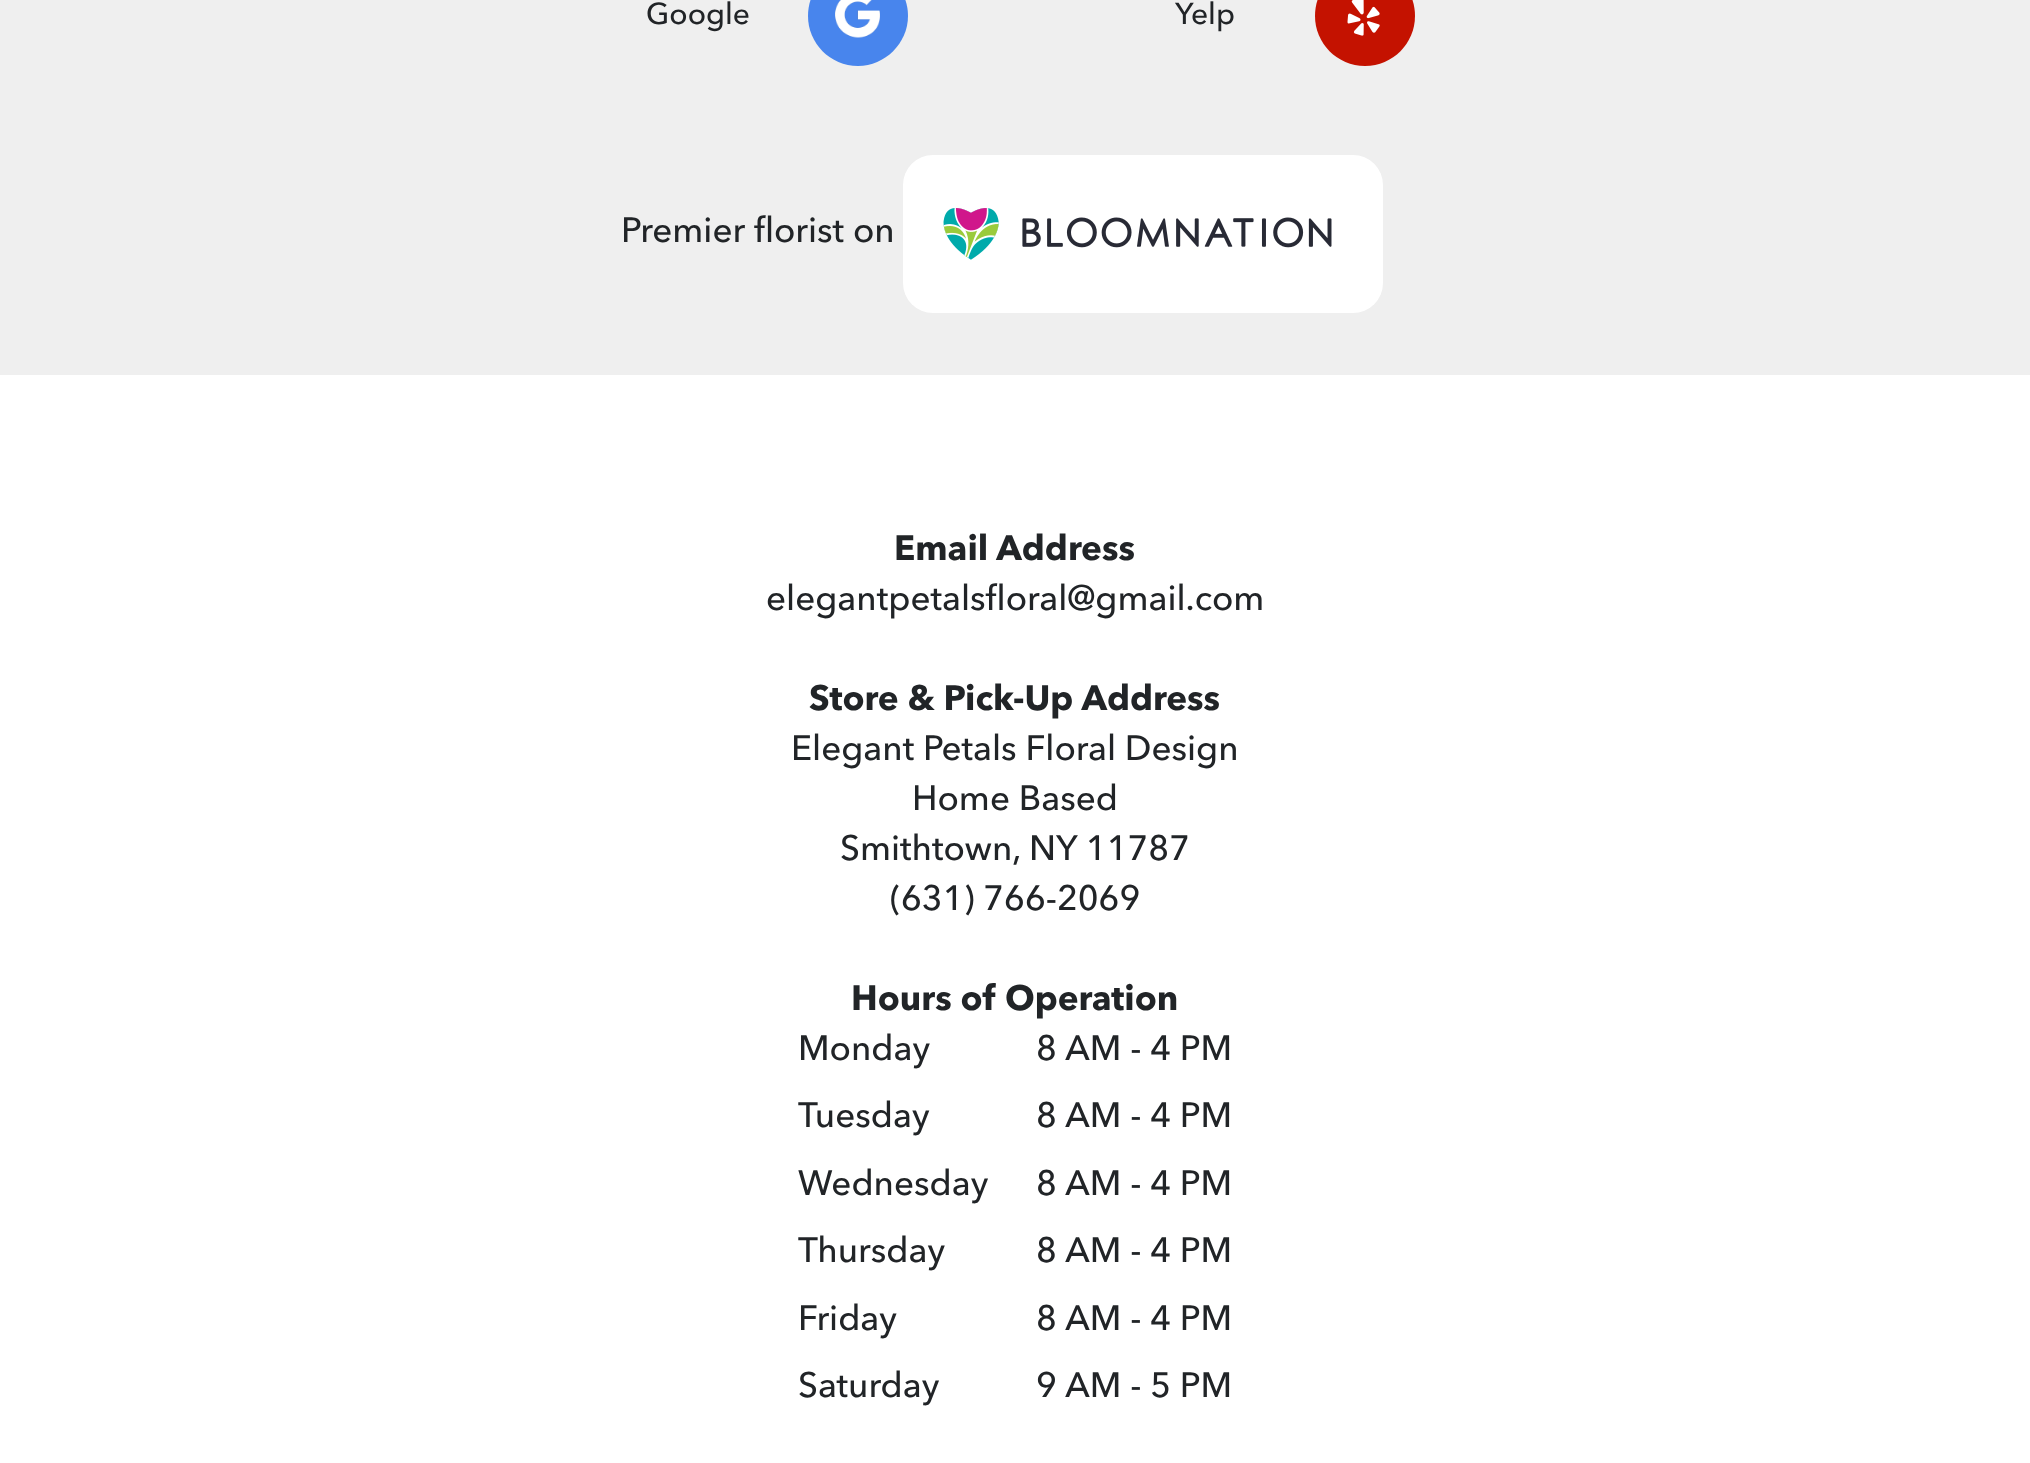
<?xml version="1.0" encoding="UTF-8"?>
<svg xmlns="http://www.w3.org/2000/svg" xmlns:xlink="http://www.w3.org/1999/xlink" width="2030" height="1463">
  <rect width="100%" height="100%" fill="#ffffff" />
  <rect width="2030" height="375" fill="#efefef" />
  <path d="M 908 16 c 0 -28 -23 -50 -50 -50 c -28 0 -50 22 -50 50 c 0 27 22 50 50 50 c 27 0 50 -23 50 -50 z" fill="#4885ed" />
  <image x="835" y="0" width="45" height="38" xlink:href="image1.png" />
  <path d="M 1415 16 c 0 -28 -22 -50 -50 -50 c -28 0 -50 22 -50 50 c 0 27 22 50 50 50 c 28 0 50 -23 50 -50 z" fill="#c41200" />
  <image x="1347" y="0" width="33" height="36" xlink:href="image2.png" />
  <rect x="903" y="155" width="480" height="158" rx="30" fill="#ffffff" />
  <image x="943" y="208" width="389" height="52" xlink:href="image3.png" />
  <text x="646" y="24" style="font-family: Avenir Next; font-size: 30px; font-weight: 500; fill: #212427">Google</text>
  <text x="1175" y="24" style="font-family: Avenir Next; font-size: 30px; font-weight: 500; fill: #212427">Yelp</text>
  <text x="621" y="242" style="font-family: Avenir Next; font-size: 35px; font-weight: 500; fill: #212427">Premier florist on</text>
  <text x="894" y="560" style="font-family: Avenir Next; font-size: 35px; font-weight: bold; fill: #212427">Email Address</text>
  <text x="766" y="610" style="font-family: Avenir Next; font-size: 35px; font-weight: 500; fill: #212427">elegantpetalsfloral@gmail.com</text>
  <text x="809" y="710" style="font-family: Avenir Next; font-size: 35px; font-weight: bold; fill: #212427">Store &amp; Pick-Up Address</text>
  <text x="791" y="760" style="font-family: Avenir Next; font-size: 35px; font-weight: 500; fill: #212427">Elegant Petals Floral Design</text>
  <text x="912" y="810" style="font-family: Avenir Next; font-size: 35px; font-weight: 500; fill: #212427">Home Based</text>
  <text x="840" y="860" style="font-family: Avenir Next; font-size: 35px; font-weight: 500; fill: #212427">Smithtown, NY 11787</text>
  <text x="890" y="910" style="font-family: Avenir Next; font-size: 35px; font-weight: 500; fill: #212427">(631) 766-2069</text>
  <text x="851" y="1010" style="font-family: Avenir Next; font-size: 35px; font-weight: bold; fill: #212427">Hours of Operation</text>
  <text x="798" y="1060" style="font-family: Avenir Next; font-size: 35px; font-weight: 500; fill: #212427">Monday</text>
  <text x="1036" y="1060" style="font-family: Avenir Next; font-size: 35px; font-weight: 500; fill: #212427">8 AM - 4 PM</text>
  <text x="798" y="1127" style="font-family: Avenir Next; font-size: 35px; font-weight: 500; fill: #212427">Tuesday</text>
  <text x="1036" y="1127" style="font-family: Avenir Next; font-size: 35px; font-weight: 500; fill: #212427">8 AM - 4 PM</text>
  <text x="798" y="1195" style="font-family: Avenir Next; font-size: 35px; font-weight: 500; fill: #212427">Wednesday</text>
  <text x="1036" y="1195" style="font-family: Avenir Next; font-size: 35px; font-weight: 500; fill: #212427">8 AM - 4 PM</text>
  <text x="798" y="1262" style="font-family: Avenir Next; font-size: 35px; font-weight: 500; fill: #212427">Thursday</text>
  <text x="1036" y="1262" style="font-family: Avenir Next; font-size: 35px; font-weight: 500; fill: #212427">8 AM - 4 PM</text>
  <text x="798" y="1330" style="font-family: Avenir Next; font-size: 35px; font-weight: 500; fill: #212427">Friday</text>
  <text x="1036" y="1330" style="font-family: Avenir Next; font-size: 35px; font-weight: 500; fill: #212427">8 AM - 4 PM</text>
  <text x="798" y="1397" style="font-family: Avenir Next; font-size: 35px; font-weight: 500; fill: #212427">Saturday</text>
  <text x="1036" y="1397" style="font-family: Avenir Next; font-size: 35px; font-weight: 500; fill: #212427">9 AM - 5 PM</text>
</svg>
